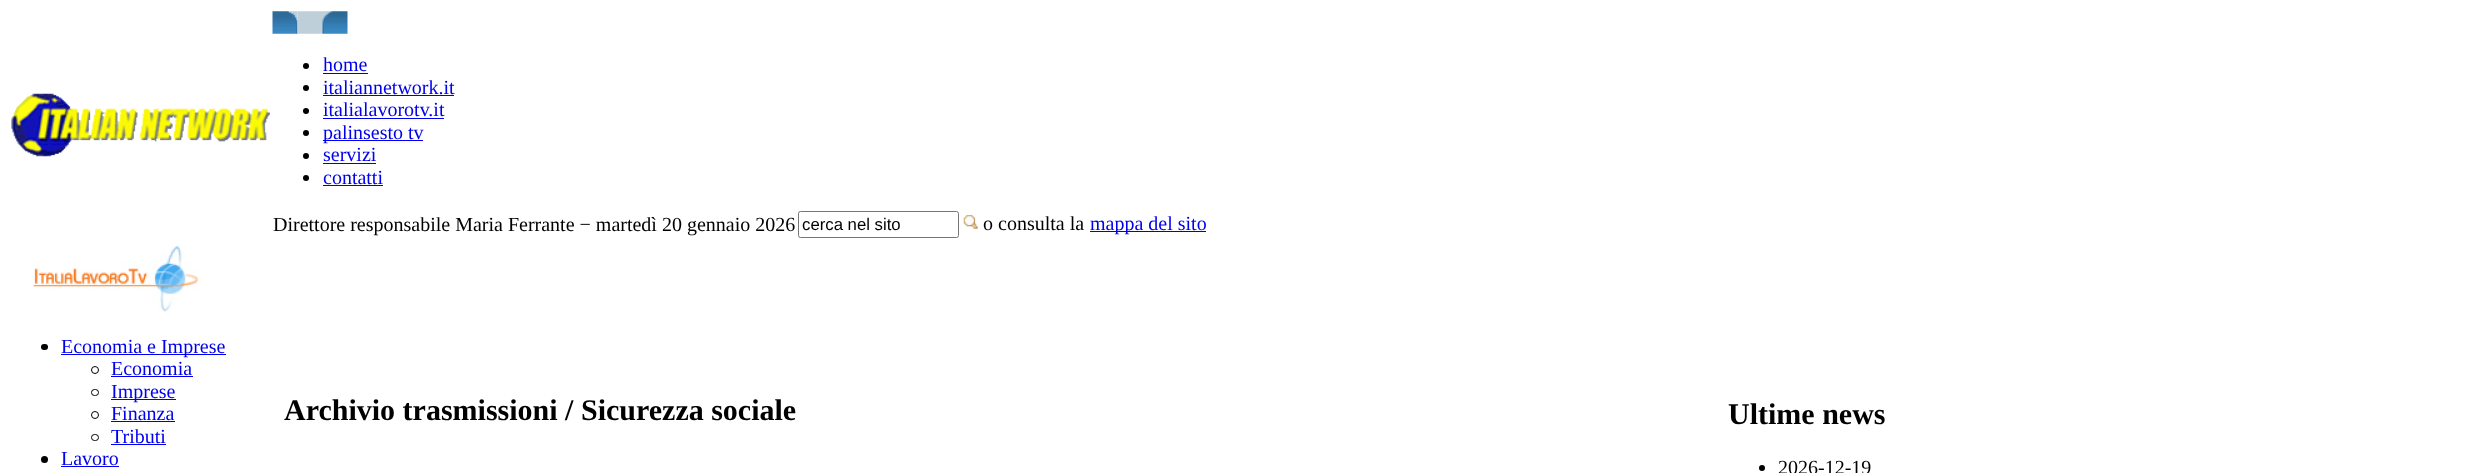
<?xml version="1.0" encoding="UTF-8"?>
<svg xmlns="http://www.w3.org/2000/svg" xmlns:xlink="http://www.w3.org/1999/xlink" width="2479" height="473">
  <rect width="100%" height="100%" fill="#ffffff" />
  <image x="11" y="93" width="259" height="64" xlink:href="image1.png" />
  <image x="272" y="11" width="26" height="23" xlink:href="image2.png" />
  <image x="297" y="11" width="51" height="23" xlink:href="image3.png" />
  <circle cx="306" cy="66" r="3" fill="#000000" />
  <rect x="323" y="73" width="45" height="1" fill="#0000ee" />
  <circle cx="306" cy="88" r="3" fill="#000000" />
  <rect x="323" y="95" width="131" height="1" fill="#0000ee" />
  <circle cx="306" cy="111" r="3" fill="#000000" />
  <rect x="323" y="118" width="121" height="1" fill="#0000ee" />
  <circle cx="306" cy="133" r="3" fill="#000000" />
  <rect x="323" y="140" width="100" height="1" fill="#0000ee" />
  <circle cx="306" cy="156" r="3" fill="#000000" />
  <rect x="323" y="163" width="53" height="1" fill="#0000ee" />
  <circle cx="306" cy="178" r="3" fill="#000000" />
  <rect x="323" y="185" width="60" height="1" fill="#0000ee" />
  <rect x="798.5" y="211.5" width="160" height="26" rx="2" fill="none" stroke="#767676" />
  <image x="963" y="215" width="15" height="14" xlink:href="image4.png" />
  <rect x="1090" y="231" width="116" height="1" fill="#0000ee" />
  <image x="33" y="246" width="165" height="66" xlink:href="image5.png" />
  <rect x="41" y="344" width="7" height="6" rx="3" fill="#000000" />
  <rect x="61" y="354" width="165" height="1" fill="#0000ee" />
  <circle cx="95" cy="370" r="3.5" fill="none" stroke="#000000" />
  <rect x="111" y="376" width="82" height="1" fill="#0000ee" />
  <rect x="91.5" y="389.5" width="7" height="6" rx="3" fill="none" stroke="#000000" />
  <rect x="111" y="399" width="65" height="1" fill="#0000ee" />
  <circle cx="95" cy="415" r="3.5" fill="none" stroke="#000000" />
  <rect x="111" y="421" width="64" height="1" fill="#0000ee" />
  <rect x="91.5" y="434.5" width="7" height="6" rx="3" fill="none" stroke="#000000" />
  <rect x="111" y="444" width="55" height="1" fill="#0000ee" />
  <circle cx="44.5" cy="459.5" r="3.5" fill="#000000" />
  <rect x="61" y="466" width="58" height="1" fill="#0000ee" />
  <circle cx="1762" cy="468" r="3" fill="#000000" />
  <text x="323" y="71" style="font-family: Liberation Serif; font-size: 20px; fill: #0000ee">home</text>
  <text x="323" y="94" style="font-family: Liberation Serif; font-size: 20px; fill: #0000ee">italiannetwork.it</text>
  <text x="323" y="116" style="font-family: Liberation Serif; font-size: 20px; fill: #0000ee">italialavorotv.it</text>
  <text x="323" y="139" style="font-family: Liberation Serif; font-size: 20px; fill: #0000ee">palinsesto tv</text>
  <text x="323" y="161" style="font-family: Liberation Serif; font-size: 20px; fill: #0000ee">servizi</text>
  <text x="323" y="184" style="font-family: Liberation Serif; font-size: 20px; fill: #0000ee">contatti</text>
  <text x="273" y="231" style="font-family: Liberation Serif; font-size: 20px; fill: #000000">Direttore responsabile Maria Ferrante − martedì 20 gennaio 2026</text>
  <text x="802" y="230" style="font-family: Liberation Sans; font-size: 16.75px; fill: #000000">cerca nel sito</text>
  <text x="983" y="230" style="font-family: Liberation Serif; font-size: 20px; fill: #000000">o consulta la</text>
  <text x="1090" y="230" style="font-family: Liberation Serif; font-size: 20px; fill: #0000ee">mappa del sito</text>
  <text x="61" y="353" style="font-family: Liberation Serif; font-size: 20px; fill: #0000ee">Economia e Imprese</text>
  <text x="111" y="375" style="font-family: Liberation Serif; font-size: 20px; fill: #0000ee">Economia</text>
  <text x="111" y="398" style="font-family: Liberation Serif; font-size: 20px; fill: #0000ee">Imprese</text>
  <text x="111" y="420" style="font-family: Liberation Serif; font-size: 20px; fill: #0000ee">Finanza</text>
  <text x="111" y="443" style="font-family: Liberation Serif; font-size: 20px; fill: #0000ee">Tributi</text>
  <text x="61" y="465" style="font-family: Liberation Serif; font-size: 20px; fill: #0000ee">Lavoro</text>
  <text x="284" y="420" style="font-family: Liberation Serif; font-size: 30px; font-weight: bold; fill: #000000">Archivio trasmissioni / Sicurezza sociale</text>
  <text x="1728" y="424" style="font-family: Liberation Serif; font-size: 30px; font-weight: bold; fill: #000000">Ultime news</text>
  <text x="1778" y="474" style="font-family: Liberation Serif; font-size: 20px; fill: #000000">2026-12-19</text>
</svg>
